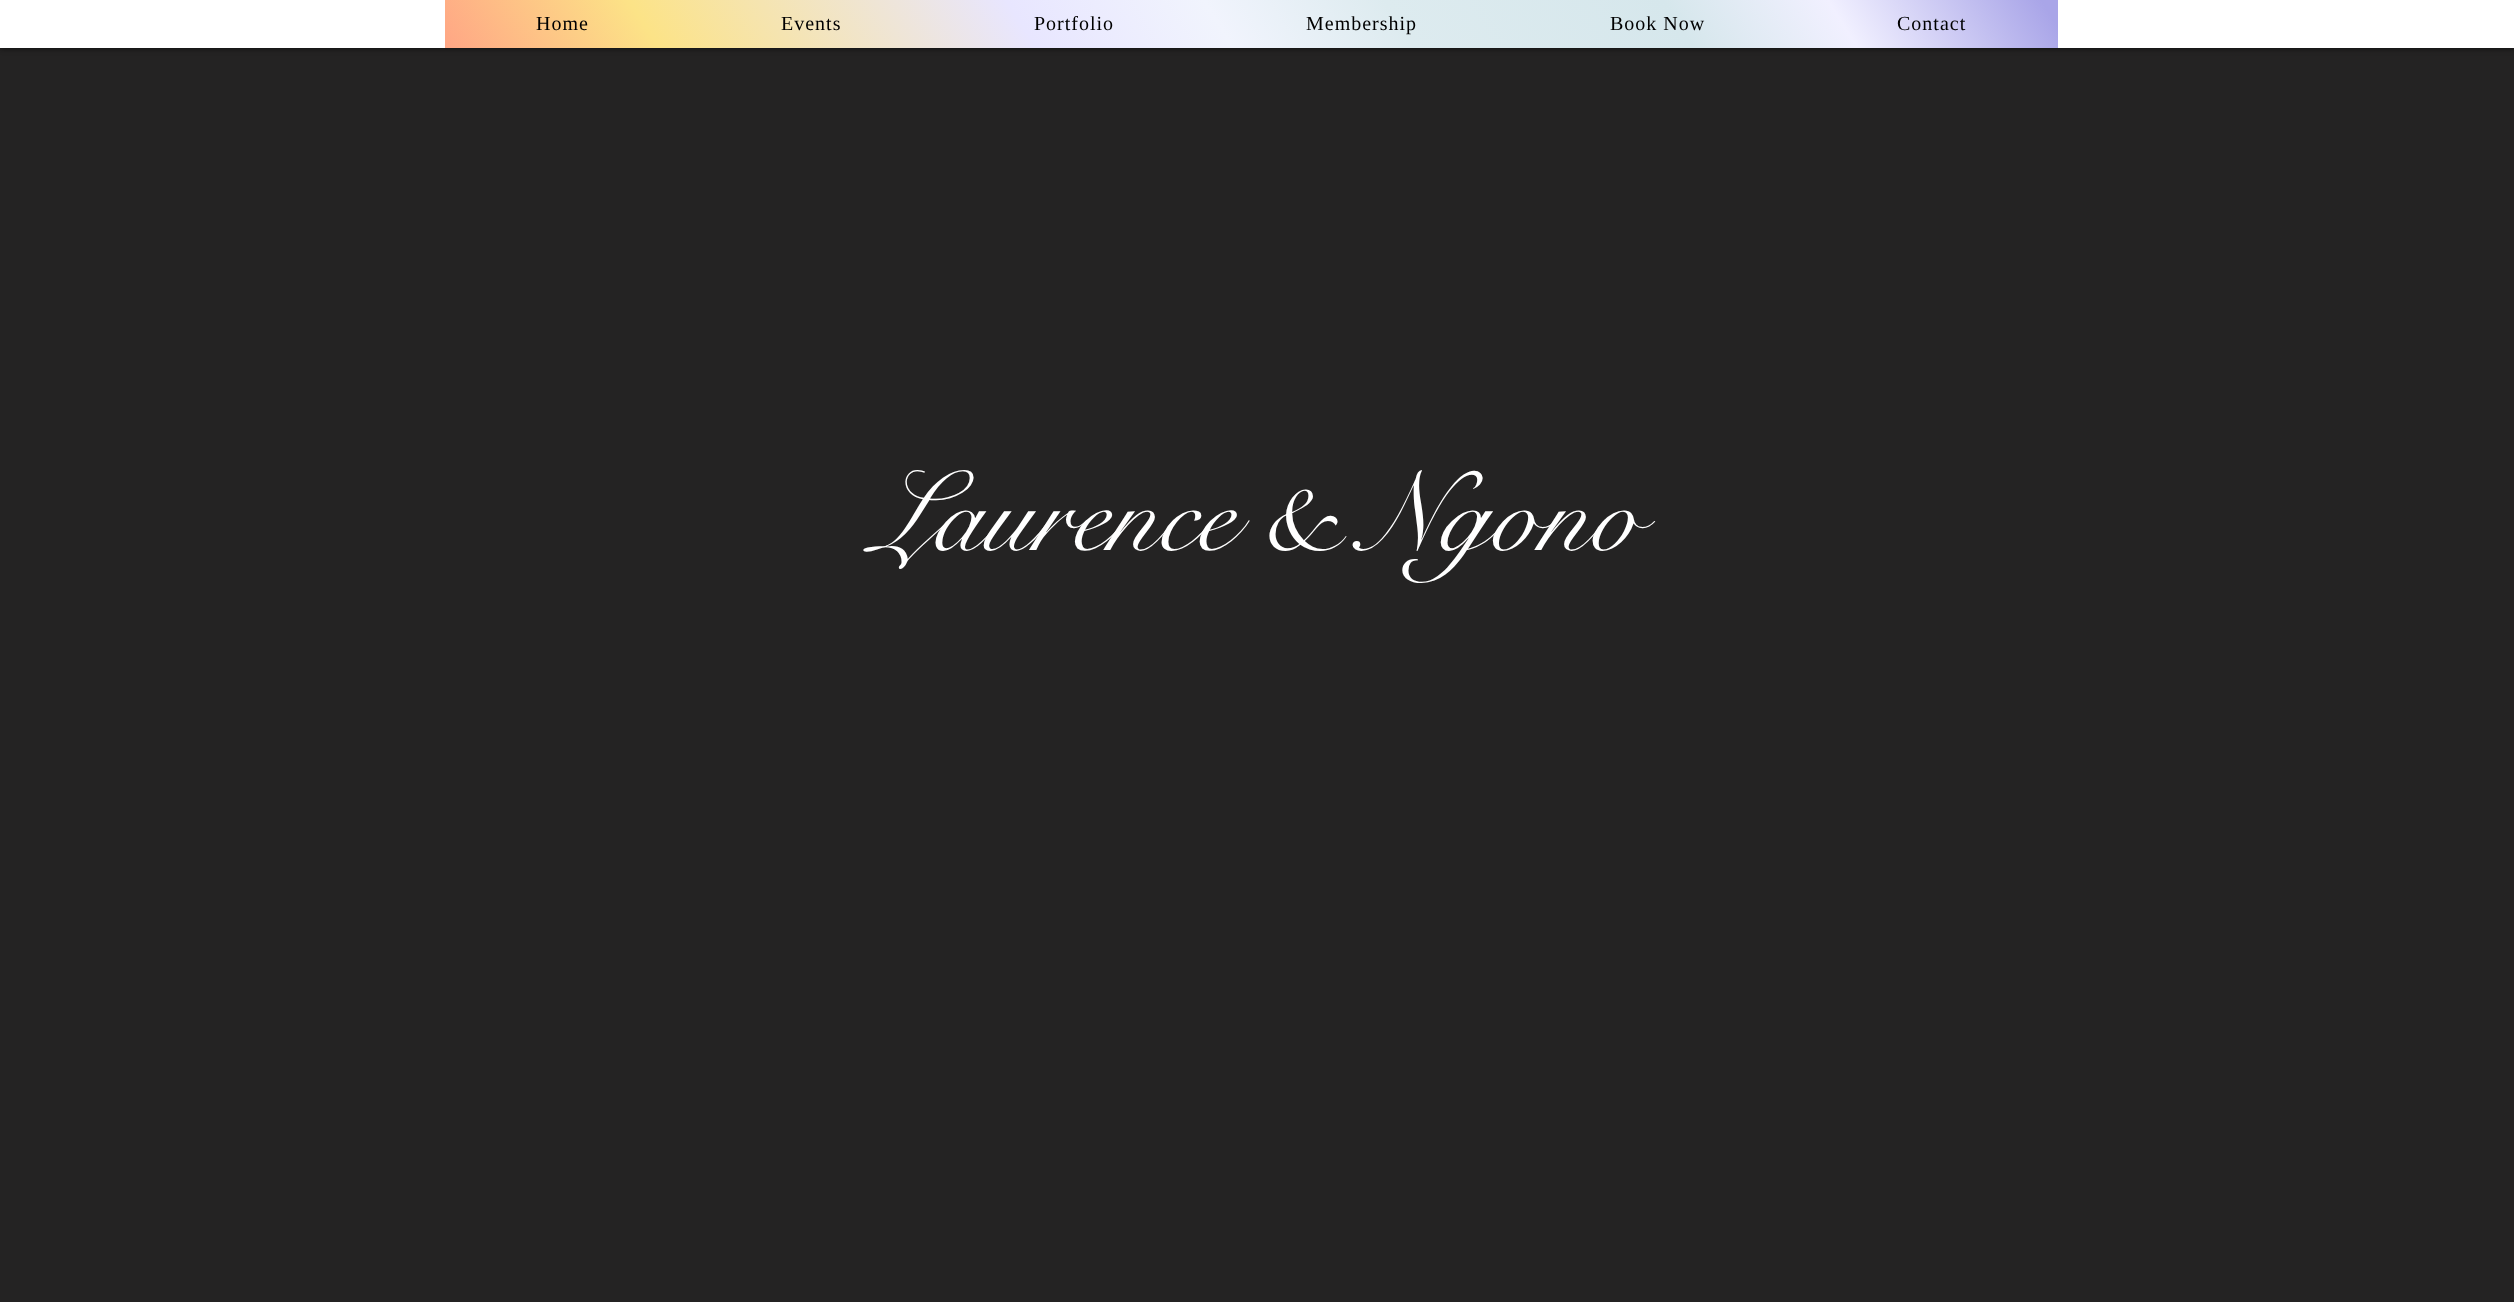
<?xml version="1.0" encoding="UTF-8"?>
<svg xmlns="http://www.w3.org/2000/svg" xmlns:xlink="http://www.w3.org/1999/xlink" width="2514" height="1302">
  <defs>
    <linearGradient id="g1" gradientUnits="userSpaceOnUse" x1="661" y1="393" x2="1842" y2="-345"><stop offset="0" stop-color="#ffa685" /><stop offset="0.13" stop-color="#fce387" /><stop offset="0.36" stop-color="#e8e6ff" /><stop offset="0.48" stop-color="#f1f4fd" /><stop offset="0.59" stop-color="#ddebef" /><stop offset="0.76" stop-color="#d6e7ec" /><stop offset="0.86" stop-color="#f1f0ff" /><stop offset="0.99" stop-color="#a9a5e8" /></linearGradient>
  </defs>
  <rect width="100%" height="100%" fill="#242323" />
  <rect width="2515" height="48" fill="#000000" fill-opacity="0.7" filter="blur(3px)" />
  <rect width="2514" height="48" fill="#ffffff" />
  <rect x="445" width="1613" height="48" fill="url(#g1)" />
  <text x="536" y="30" style="font-family: Liberation Serif; font-size: 20px; letter-spacing: 1px; fill: #000000">Home</text>
  <text x="781" y="30" style="font-family: Liberation Serif; font-size: 20px; letter-spacing: 1px; fill: #000000">Events</text>
  <text x="1034" y="30" style="font-family: Liberation Serif; font-size: 20px; letter-spacing: 1px; fill: #000000">Portfolio</text>
  <text x="1306" y="30" style="font-family: Liberation Serif; font-size: 20px; letter-spacing: 1px; fill: #000000">Membership</text>
  <text x="1610" y="30" style="font-family: Liberation Serif; font-size: 20px; letter-spacing: 1px; fill: #000000">Book Now</text>
  <text x="1897" y="30" style="font-family: Liberation Serif; font-size: 20px; letter-spacing: 1px; fill: #000000">Contact</text>
  <text x="873" y="550" style="font-family: 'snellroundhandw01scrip'; font-size: 112.5px; fill: #ffffff">Laurence &amp; Ngono</text>
</svg>
